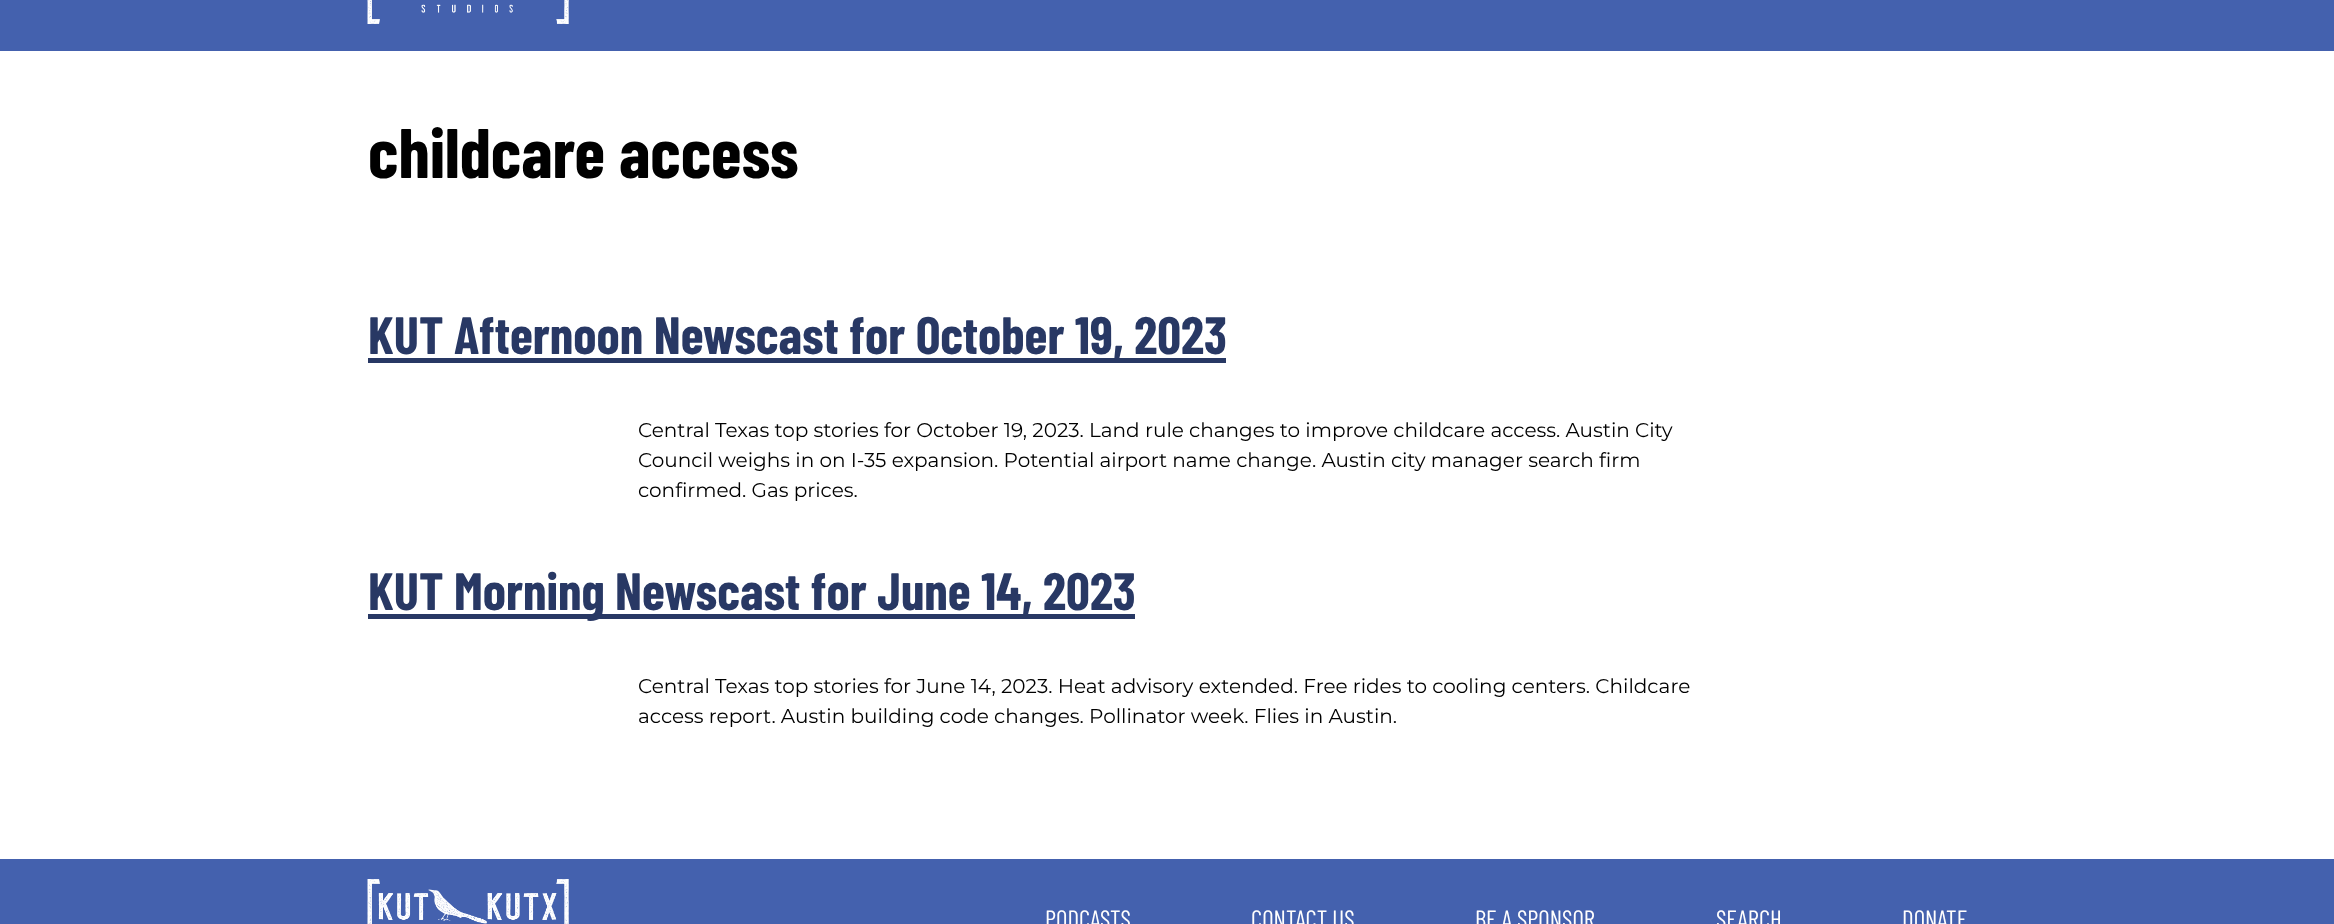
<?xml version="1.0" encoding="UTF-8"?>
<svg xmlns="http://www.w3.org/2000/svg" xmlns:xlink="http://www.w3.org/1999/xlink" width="2334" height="924">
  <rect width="100%" height="100%" fill="#ffffff" />
  <rect width="2334" height="51" fill="#4461ae" />
  <image x="367" y="0" width="202" height="24" xlink:href="image1.png" />
  <rect x="368" y="358" width="858" height="5" fill="#283864" />
  <rect x="368" y="614" width="767" height="5" fill="#283864" />
  <rect y="859" width="2334" height="65" fill="#4461ae" />
  <image x="367" y="879" width="202" height="45" xlink:href="image2.png" />
  <text x="368" y="178" style="font-family: Barlow Condensed; font-size: 70px; font-weight: bold; fill: #000000">childcare access</text>
  <text x="368" y="354" style="font-family: Barlow Condensed; font-size: 52.5px; font-weight: bold; fill: #283864">KUT Afternoon Newscast for October 19, 2023</text>
  <text x="638" y="437" style="font-family: Montserrat; font-size: 20px; fill: #000000">Central Texas top stories for October 19, 2023. Land rule changes to improve childcare access. Austin City</text>
  <text x="638" y="467" style="font-family: Montserrat; font-size: 20px; fill: #000000">Council weighs in on I-35 expansion. Potential airport name change. Austin city manager search firm</text>
  <text x="638" y="497" style="font-family: Montserrat; font-size: 20px; fill: #000000">confirmed. Gas prices.</text>
  <text x="368" y="610" style="font-family: Barlow Condensed; font-size: 52.5px; font-weight: bold; fill: #283864">KUT Morning Newscast for June 14, 2023</text>
  <text x="638" y="693" style="font-family: Montserrat; font-size: 20px; fill: #000000">Central Texas top stories for June 14, 2023. Heat advisory extended. Free rides to cooling centers. Childcare</text>
  <text x="638" y="723" style="font-family: Montserrat; font-size: 20px; fill: #000000">access report. Austin building code changes. Pollinator week. Flies in Austin.</text>
  <text x="1045" y="928" style="font-family: Barlow Condensed; font-size: 25px; fill: #fffefe">PODCASTS</text>
  <text x="1251" y="928" style="font-family: Barlow Condensed; font-size: 25px; fill: #fffefe">CONTACT US</text>
  <text x="1475" y="928" style="font-family: Barlow Condensed; font-size: 25px; fill: #fffefe">BE A SPONSOR</text>
  <text x="1716" y="928" style="font-family: Barlow Condensed; font-size: 25px; fill: #fffefe">SEARCH</text>
  <text x="1902" y="928" style="font-family: Barlow Condensed; font-size: 25px; fill: #fffefe">DONATE</text>
</svg>
